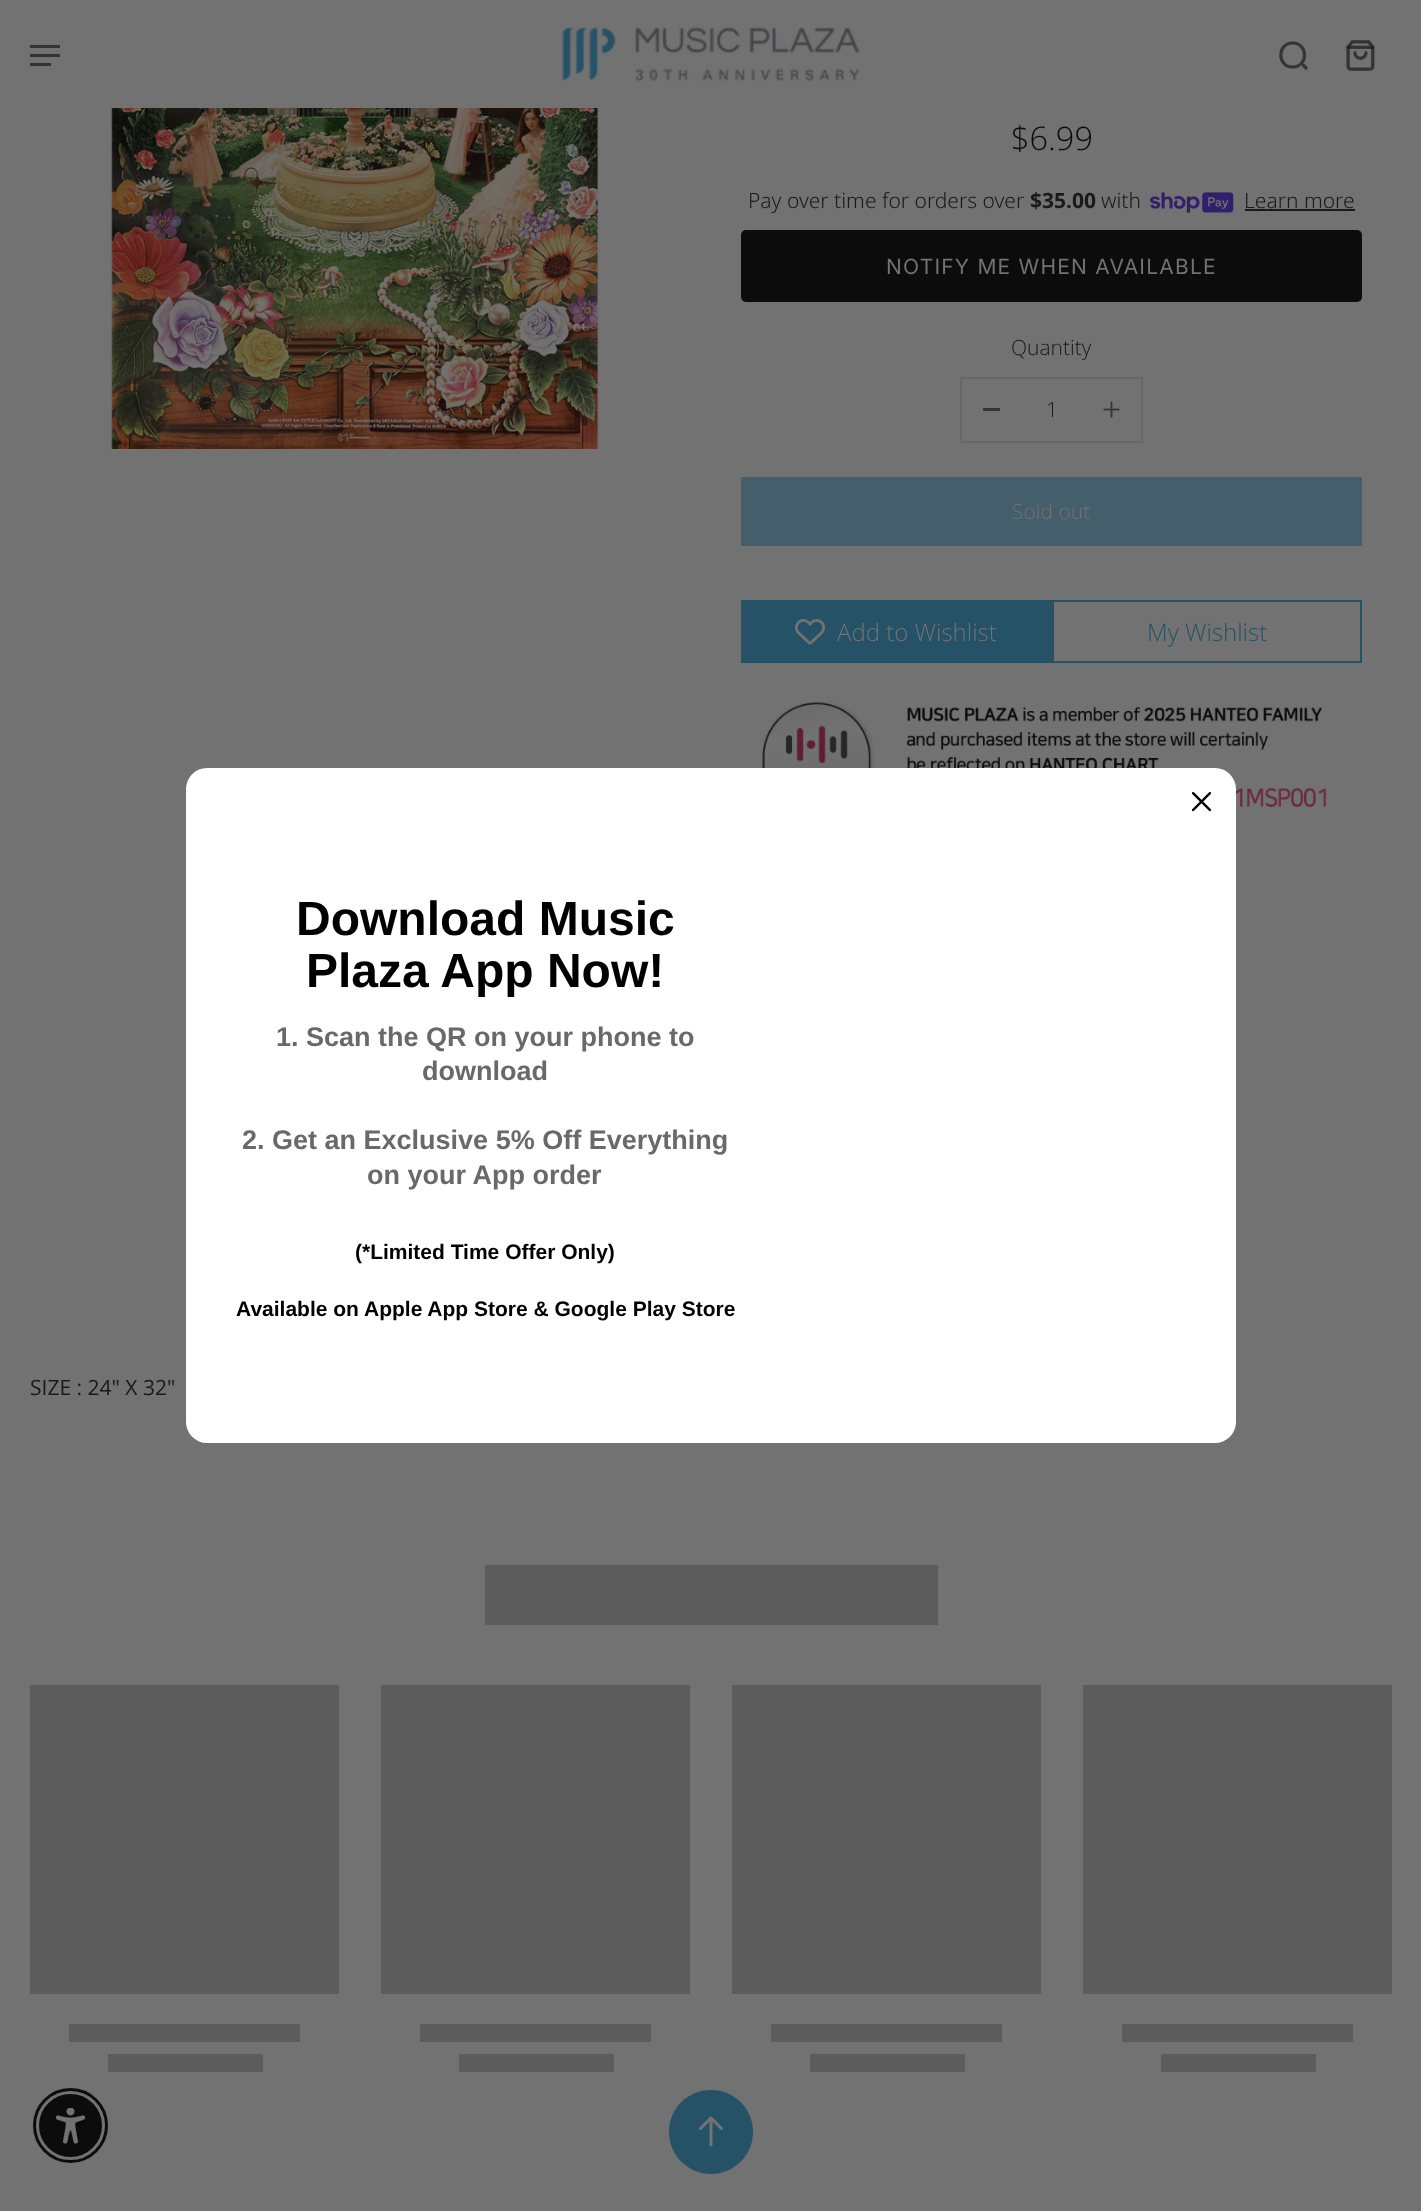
<?xml version="1.0" encoding="UTF-8"?>
<svg xmlns="http://www.w3.org/2000/svg" xmlns:xlink="http://www.w3.org/1999/xlink" width="1421" height="2211">
  <rect width="100%" height="100%" fill="#727272" />
  <image x="30" y="45" width="30" height="21" xlink:href="image1.png" />
  <image x="562" y="26" width="298" height="56" xlink:href="image2.png" />
  <path d="M 1292.5 67 c 16 0 16 -24 0 -24 c -15.5 0 -15.5 24 0 24 z m 13.5 1 l -2.5 -2.5" fill="none" stroke="#353535" stroke-width="3.2" stroke-linecap="round" stroke-linejoin="round" />
  <image x="1346" y="40" width="29" height="31" xlink:href="image3.png" />
  <image x="106" y="108" width="494" height="341" xlink:href="image4.png" />
  <image x="1150" y="192" width="84" height="21" xlink:href="image5.png" />
  <rect x="1245" y="209" width="110" height="2" fill="#1a1a1a" />
  <rect x="741" y="230" width="621" height="72" rx="5" fill="#0c0c0c" />
  <rect x="961" y="378" width="181" height="64" fill="none" stroke="#676767" stroke-width="2" />
  <rect x="983" y="408" width="17" height="3" fill="#353535" />
  <image x="1103" y="401" width="17" height="17" xlink:href="image6.png" />
  <rect x="741" y="477" width="621" height="69" fill="#445e6b" />
  <rect x="741" y="600" width="311" height="63" fill="#255267" />
  <image x="795" y="619" width="30" height="26" xlink:href="image7.png" />
  <rect x="1053" y="601" width="308" height="61" fill="none" stroke="#255267" stroke-width="2" />
  <image x="762" y="702" width="565" height="106" xlink:href="image8.png" />
  <rect x="485" y="1565" width="453" height="60" fill="#5c5c5c" />
  <rect x="30" y="1685" width="309" height="309" fill="#5c5c5c" />
  <rect x="69" y="2024" width="231" height="18" fill="#5c5c5c" />
  <rect x="108" y="2054" width="155" height="18" fill="#5c5c5c" />
  <rect x="381" y="1685" width="309" height="309" fill="#5c5c5c" />
  <rect x="420" y="2024" width="231" height="18" fill="#5c5c5c" />
  <rect x="459" y="2054" width="155" height="18" fill="#5c5c5c" />
  <rect x="732" y="1685" width="309" height="309" fill="#5c5c5c" />
  <rect x="771" y="2024" width="231" height="18" fill="#5c5c5c" />
  <rect x="810" y="2054" width="155" height="18" fill="#5c5c5c" />
  <rect x="1083" y="1685" width="309" height="309" fill="#5c5c5c" />
  <rect x="1122" y="2024" width="231" height="18" fill="#5c5c5c" />
  <rect x="1161" y="2054" width="155" height="18" fill="#5c5c5c" />
  <path d="M 669 2132 c 0 -24 19 -42 42 -42 c 23 0 42 18 42 42 c 0 23 -19 42 -42 42 c -23 0 -42 -19 -42 -42 z" fill="#255267" />
  <image x="699" y="2116" width="24" height="31" xlink:href="image9.png" />
  <rect x="186" y="768" width="1050" height="675" rx="21" fill="#ffffff" />
  <image x="1191" y="792" width="21" height="20" xlink:href="image10.png" />
  <circle cx="70.5" cy="2125.5" r="36" fill="none" stroke="#0c0c0c" stroke-width="3" />
  <circle cx="70.5" cy="2125.5" r="30.5" fill="#0c0c0c" stroke="#0c0c0c" stroke-width="2" />
  <image x="55" y="2108" width="31" height="36" xlink:href="image11.png" />
  <text x="1011" y="150" style="font-family: Open Sans; font-size: 32.5px; font-weight: 300; fill: #0c0c0c">$6.99</text>
  <text x="748" y="208" style="font-family: Noto Sans; font-size: 21px; font-weight: 300; fill: #1a1a1a">Pay over time for orders over</text>
  <text x="1030" y="208" style="font-family: Noto Sans; font-size: 21px; font-weight: bold; fill: #1a1a1a">$35.00</text>
  <text x="1101" y="208" style="font-family: Noto Sans; font-size: 21px; font-weight: 300; fill: #1a1a1a">with</text>
  <text x="1244" y="208" style="font-family: Noto Sans; font-size: 21px; font-weight: 300; fill: #1a1a1a">Learn more</text>
  <text x="886" y="274" style="font-family: Inter; font-size: 21px; letter-spacing: 1.2px; fill: #727272">NOTIFY ME WHEN AVAILABLE</text>
  <text x="1011" y="355" style="font-family: Open Sans; font-size: 21px; font-weight: 300; fill: #1a1a1a">Quantity</text>
  <text x="1046" y="417" style="font-family: Open Sans; font-size: 21px; font-weight: 300; fill: #1a1a1a">1</text>
  <text x="1012" y="519" style="font-family: Open Sans; font-size: 21px; font-weight: 300; fill: #727272">Sold out</text>
  <text x="837" y="641" style="font-family: Open Sans; font-size: 24px; font-weight: 300; fill: #727272">Add to Wishlist</text>
  <text x="1147" y="641" style="font-family: Open Sans; font-size: 24px; font-weight: 300; fill: #255267">My Wishlist</text>
  <text x="30" y="1395" style="font-family: Open Sans; font-size: 21px; fill: #1a1a1a">SIZE : 24" X 32"</text>
  <text x="296" y="935" style="font-family: Liberation Sans; font-size: 48px; font-weight: bold; fill: #000000">Download Music</text>
  <text x="306" y="987" style="font-family: Liberation Sans; font-size: 48px; font-weight: bold; fill: #000000">Plaza App Now!</text>
  <text x="276" y="1046" style="font-family: Liberation Sans; font-size: 27px; font-weight: bold; fill: #696969">1. Scan the QR on your phone to</text>
  <text x="422" y="1080" style="font-family: Liberation Sans; font-size: 27px; font-weight: bold; fill: #696969">download</text>
  <text x="242" y="1149" style="font-family: Liberation Sans; font-size: 27px; font-weight: bold; fill: #696969">2. Get an Exclusive 5% Off Everything</text>
  <text x="367" y="1184" style="font-family: Liberation Sans; font-size: 27px; font-weight: bold; fill: #696969">on your App order</text>
  <text x="355" y="1259" style="font-family: Liberation Sans; font-size: 21px; font-weight: bold; fill: #000000">(*Limited Time Offer Only)</text>
  <text x="236" y="1316" style="font-family: Liberation Sans; font-size: 21px; font-weight: bold; fill: #000000">Available on Apple App Store &amp; Google Play Store</text>
</svg>
